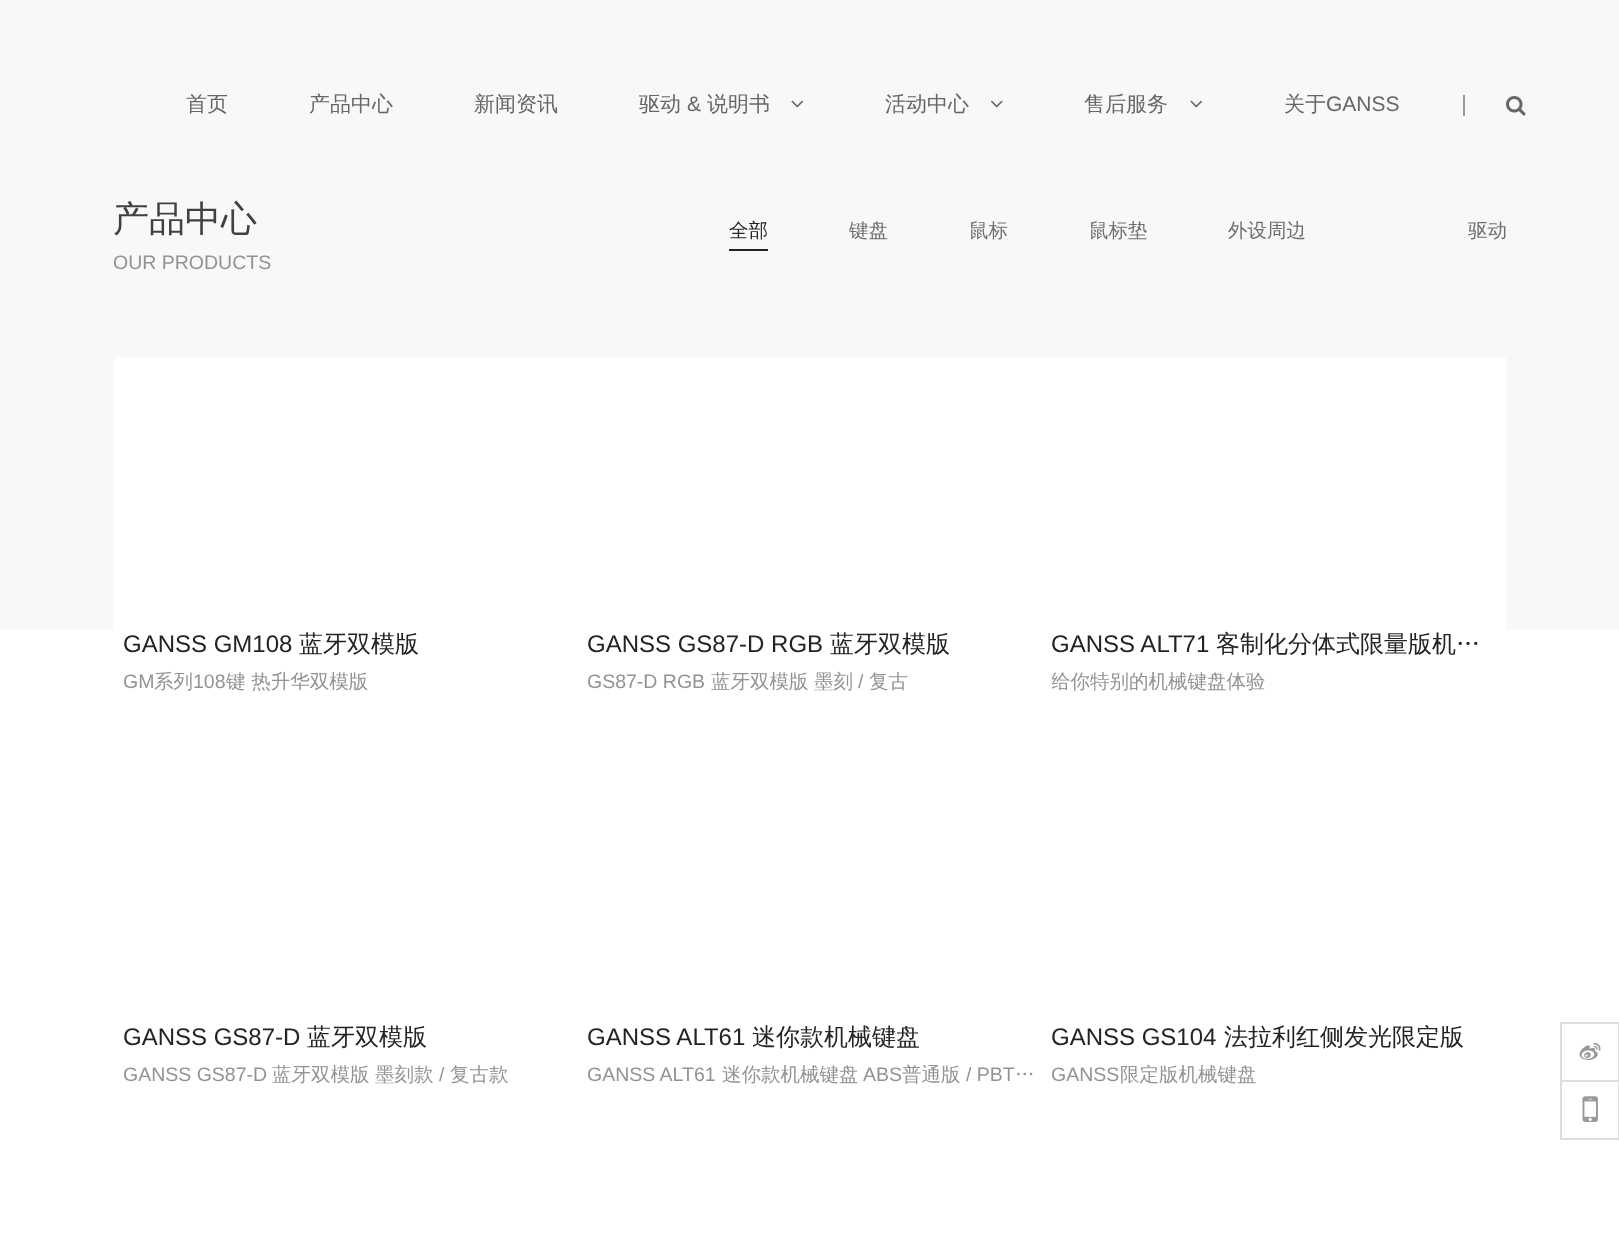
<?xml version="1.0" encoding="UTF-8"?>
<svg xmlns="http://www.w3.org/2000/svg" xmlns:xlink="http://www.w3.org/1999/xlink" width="1619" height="1240">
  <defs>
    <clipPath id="clip1"><rect x="1052" y="669" width="445" height="27" /></clipPath>
  </defs>
  <rect width="100%" height="100%" fill="#ffffff" />
  <rect width="1619" height="630" fill="#f8f8f8" />
  <image x="791" y="100" width="12" height="8" xlink:href="image1.png" />
  <image x="991" y="100" width="12" height="8" xlink:href="image2.png" />
  <image x="1190" y="100" width="12" height="8" xlink:href="image1.png" />
  <rect x="1463" y="95" width="2" height="21" fill="#999999" />
  <image x="1506" y="96" width="20" height="20" xlink:href="image3.png" />
  <rect x="729" y="249" width="39" height="2" fill="#232323" />
  <rect x="114" y="357" width="1392" height="273" fill="#ffffff" />
  <rect x="1561" y="1023" width="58" height="58" fill="none" stroke="#dddddd" stroke-width="2" />
  <image x="1579" y="1043" width="22" height="17" xlink:href="image4.png" />
  <rect x="1561" y="1081" width="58" height="58" fill="none" stroke="#dddddd" stroke-width="2" />
  <image x="1582" y="1096" width="16" height="26" xlink:href="image5.png" />
  <text x="186" y="111" style="font-family: WenQuanYi Zen Hei; font-size: 21px; font-weight: 500; fill: #666666">首页</text>
  <text x="309" y="111" style="font-family: WenQuanYi Zen Hei; font-size: 21px; font-weight: 500; fill: #666666">产品中心</text>
  <text x="474" y="111" style="font-family: WenQuanYi Zen Hei; font-size: 21px; font-weight: 500; fill: #666666">新闻资讯</text>
  <text x="639" y="111" style="font-family: WenQuanYi Zen Hei; font-size: 21px; font-weight: 500; fill: #666666">驱动</text>
  <text x="687" y="111" style="font-family: Liberation Sans; font-size: 21px; fill: #666666">&amp;</text>
  <text x="707" y="111" style="font-family: WenQuanYi Zen Hei; font-size: 21px; font-weight: 500; fill: #666666">说明书</text>
  <text x="885" y="111" style="font-family: WenQuanYi Zen Hei; font-size: 21px; font-weight: 500; fill: #666666">活动中心</text>
  <text x="1084" y="111" style="font-family: WenQuanYi Zen Hei; font-size: 21px; font-weight: 500; fill: #666666">售后服务</text>
  <text x="1284" y="111" style="font-family: WenQuanYi Zen Hei; font-size: 21px; font-weight: 500; fill: #666666">关于</text>
  <text x="1326" y="111" style="font-family: Liberation Sans; font-size: 21px; fill: #666666">GANSS</text>
  <text x="113" y="231" style="font-family: WenQuanYi Zen Hei; font-size: 36px; font-weight: 500; fill: #414141">产品中心</text>
  <text x="113" y="269" style="font-family: Liberation Sans; font-size: 19.5px; fill: #939393">OUR PRODUCTS</text>
  <text x="729" y="237" style="font-family: WenQuanYi Zen Hei; font-size: 19.5px; font-weight: 500; fill: #232323">全部</text>
  <text x="849" y="237" style="font-family: WenQuanYi Zen Hei; font-size: 19.5px; font-weight: 500; fill: #6f6f6f">键盘</text>
  <text x="969" y="237" style="font-family: WenQuanYi Zen Hei; font-size: 19.5px; font-weight: 500; fill: #6f6f6f">鼠标</text>
  <text x="1089" y="237" style="font-family: WenQuanYi Zen Hei; font-size: 19.5px; font-weight: 500; fill: #6f6f6f">鼠标垫</text>
  <text x="1228" y="237" style="font-family: WenQuanYi Zen Hei; font-size: 19.5px; font-weight: 500; fill: #6f6f6f">外设周边</text>
  <text x="1468" y="237" style="font-family: WenQuanYi Zen Hei; font-size: 19.5px; font-weight: 500; fill: #6f6f6f">驱动</text>
  <text x="123" y="652" style="font-family: Liberation Sans; font-size: 24px; fill: #232323">GANSS GM108</text>
  <text x="299" y="652" style="font-family: WenQuanYi Zen Hei; font-size: 24px; font-weight: 500; fill: #232323">蓝牙双模版</text>
  <text x="123" y="688" style="font-family: Liberation Sans; font-size: 19.5px; fill: #939393">GM</text>
  <text x="154" y="688" style="font-family: WenQuanYi Zen Hei; font-size: 19.5px; font-weight: 500; fill: #939393">系列</text>
  <text x="193" y="688" style="font-family: Liberation Sans; font-size: 19.5px; fill: #939393">108</text>
  <text x="226" y="688" style="font-family: WenQuanYi Zen Hei; font-size: 19.5px; font-weight: 500; fill: #939393">键 热升华双模版</text>
  <text x="587" y="652" style="font-family: Liberation Sans; font-size: 24px; fill: #232323">GANSS GS87-D RGB</text>
  <text x="830" y="652" style="font-family: WenQuanYi Zen Hei; font-size: 24px; font-weight: 500; fill: #232323">蓝牙双模版</text>
  <text x="587" y="688" style="font-family: Liberation Sans; font-size: 19.5px; fill: #939393">GS87-D RGB</text>
  <text x="711" y="688" style="font-family: WenQuanYi Zen Hei; font-size: 19.5px; font-weight: 500; fill: #939393">蓝牙双模版</text>
  <text x="814" y="688" style="font-family: WenQuanYi Zen Hei; font-size: 19.5px; font-weight: 500; fill: #939393">墨刻</text>
  <text x="858" y="688" style="font-family: Liberation Sans; font-size: 19.5px; fill: #939393">/</text>
  <text x="869" y="688" style="font-family: WenQuanYi Zen Hei; font-size: 19.5px; font-weight: 500; fill: #939393">复古</text>
  <text x="1051" y="652" style="font-family: Liberation Sans; font-size: 24px; fill: #232323">GANSS ALT71</text>
  <text x="1216" y="652" style="font-family: WenQuanYi Zen Hei; font-size: 24px; font-weight: 500; fill: #232323">客制化分体式限量版机…</text>
  <g clip-path="url(#clip1)">
    <text x="1051" y="688" style="font-family: WenQuanYi Zen Hei; font-size: 19.5px; font-weight: 500; fill: #939393">给你特别的机械键盘体验</text>
  </g>
  <text x="123" y="1045" style="font-family: Liberation Sans; font-size: 24px; fill: #232323">GANSS GS87-D</text>
  <text x="307" y="1045" style="font-family: WenQuanYi Zen Hei; font-size: 24px; font-weight: 500; fill: #232323">蓝牙双模版</text>
  <text x="123" y="1081" style="font-family: Liberation Sans; font-size: 19.5px; fill: #939393">GANSS GS87-D</text>
  <text x="272" y="1081" style="font-family: WenQuanYi Zen Hei; font-size: 19.5px; font-weight: 500; fill: #939393">蓝牙双模版</text>
  <text x="375" y="1081" style="font-family: WenQuanYi Zen Hei; font-size: 19.5px; font-weight: 500; fill: #939393">墨刻款</text>
  <text x="439" y="1081" style="font-family: Liberation Sans; font-size: 19.5px; fill: #939393">/</text>
  <text x="450" y="1081" style="font-family: WenQuanYi Zen Hei; font-size: 19.5px; font-weight: 500; fill: #939393">复古款</text>
  <text x="587" y="1045" style="font-family: Liberation Sans; font-size: 24px; fill: #232323">GANSS ALT61</text>
  <text x="752" y="1045" style="font-family: WenQuanYi Zen Hei; font-size: 24px; font-weight: 500; fill: #232323">迷你款机械键盘</text>
  <text x="587" y="1081" style="font-family: Liberation Sans; font-size: 19.5px; fill: #939393">GANSS ALT61</text>
  <text x="722" y="1081" style="font-family: WenQuanYi Zen Hei; font-size: 19.5px; font-weight: 500; fill: #939393">迷你款机械键盘</text>
  <text x="863" y="1081" style="font-family: Liberation Sans; font-size: 19.5px; fill: #939393">ABS</text>
  <text x="902" y="1081" style="font-family: WenQuanYi Zen Hei; font-size: 19.5px; font-weight: 500; fill: #939393">普通版</text>
  <text x="966" y="1081" style="font-family: Liberation Sans; font-size: 19.5px; fill: #939393">/ PBT</text>
  <text x="1015" y="1081" style="font-family: WenQuanYi Zen Hei; font-size: 19.5px; font-weight: 500; fill: #939393">…</text>
  <text x="1051" y="1045" style="font-family: Liberation Sans; font-size: 24px; fill: #232323">GANSS GS104</text>
  <text x="1224" y="1045" style="font-family: WenQuanYi Zen Hei; font-size: 24px; font-weight: 500; fill: #232323">法拉利红侧发光限定版</text>
  <text x="1051" y="1081" style="font-family: Liberation Sans; font-size: 19.5px; fill: #939393">GANSS</text>
  <text x="1120" y="1081" style="font-family: WenQuanYi Zen Hei; font-size: 19.5px; font-weight: 500; fill: #939393">限定版机械键盘</text>
</svg>
